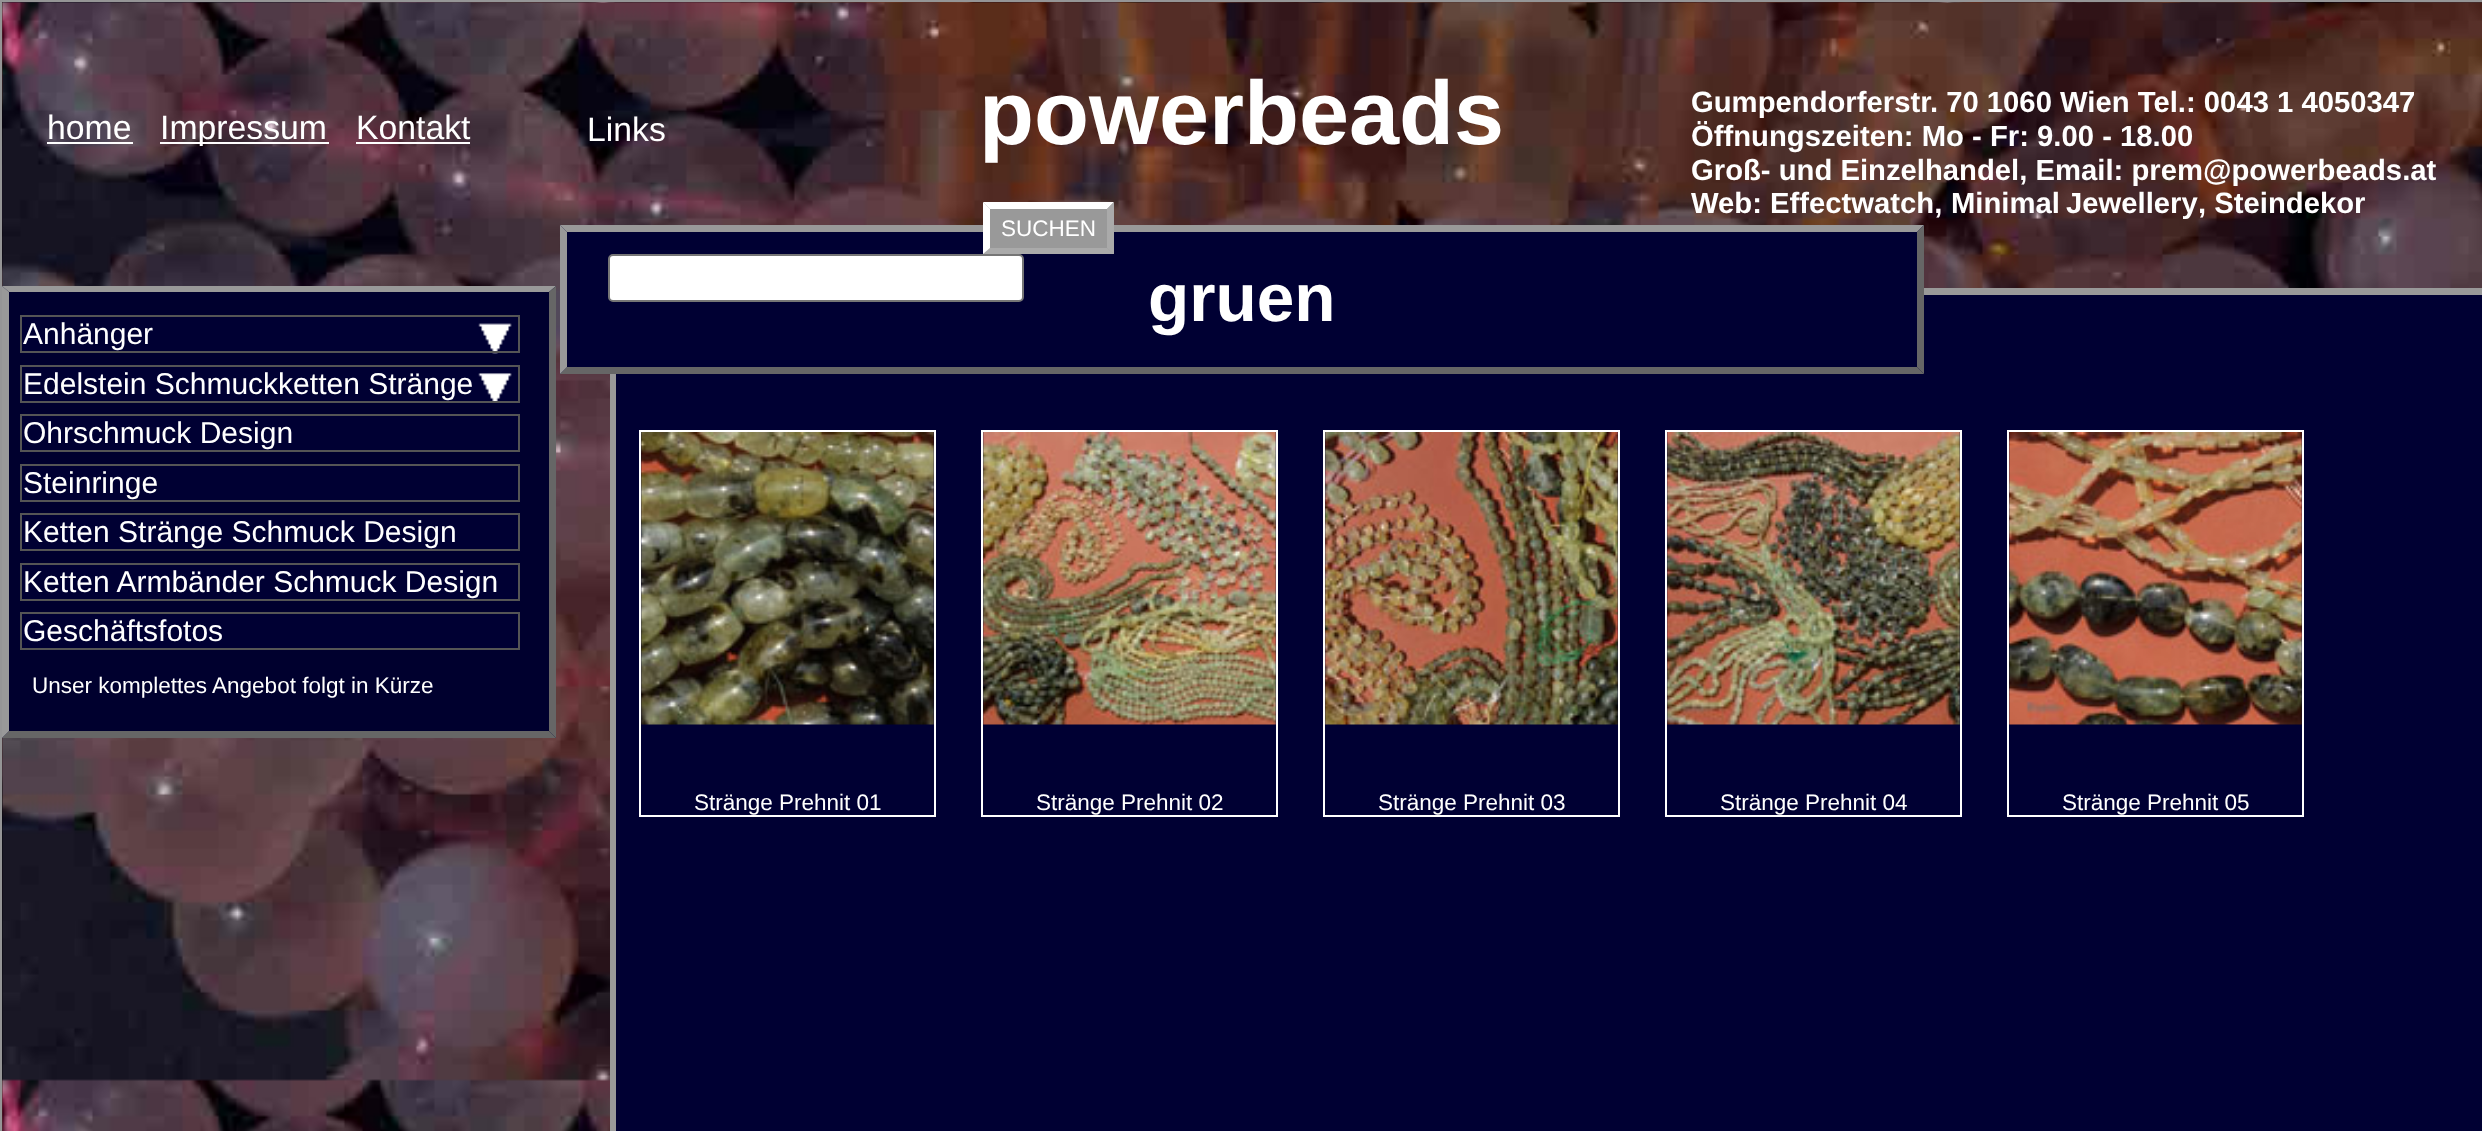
<?xml version="1.0" encoding="UTF-8"?>
<svg xmlns="http://www.w3.org/2000/svg" xmlns:xlink="http://www.w3.org/1999/xlink" width="2482" height="1131">
  <rect width="100%" height="100%" fill="#ffffff" />
  <image x="2" y="2" width="2480" height="1129" xlink:href="image1.png" />
  <rect x="1" y="1" width="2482" height="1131" fill="none" stroke="#959596" stroke-width="2" />
  <rect x="47" y="142" width="86" height="2" fill="#ffffff" />
  <rect x="160" y="142" width="169" height="2" fill="#ffffff" />
  <rect x="356" y="142" width="114" height="2" fill="#ffffff" />
  <rect x="616" y="295" width="1866" height="836" fill="#000033" />
  <path d="M 610 288 h 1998 l -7 7 h -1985 z" fill="#999999" />
  <path d="M 610 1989 v -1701 l 6 7 v 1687 z" fill="#999999" />
  <rect x="560" y="225" width="1364" height="149" fill="#000033" />
  <path d="M 560 225 h 1364 l -7 7 h -1350 z" fill="#999999" />
  <path d="M 1924 225 v 149 l -7 -7 v -135 z" fill="#666666" />
  <path d="M 1924 374 h -1364 l 7 -7 h 1350 z" fill="#666666" />
  <path d="M 560 374 v -149 l 7 7 v 135 z" fill="#999999" />
  <rect x="2" y="286" width="554" height="452" fill="#00002e" />
  <path d="M 2 286 h 554 l -7 6 h -540 z" fill="#999999" />
  <path d="M 556 286 v 452 l -7 -7 v -439 z" fill="#666666" />
  <path d="M 556 738 h -554 l 7 -7 h 540 z" fill="#666666" />
  <path d="M 2 738 v -452 l 7 6 v 439 z" fill="#999999" />
  <rect x="22" y="317" width="496" height="34" fill="#000033" />
  <image x="478" y="323" width="34" height="31" xlink:href="image2.png" />
  <rect x="21" y="316" width="498" height="36" fill="none" stroke="#555555" stroke-width="2" />
  <rect x="22" y="367" width="496" height="34" fill="#000033" />
  <image x="478" y="373" width="34" height="28" xlink:href="image3.png" />
  <rect x="21" y="366" width="498" height="36" fill="none" stroke="#555555" stroke-width="2" />
  <rect x="21" y="415" width="498" height="36" fill="#000033" stroke="#555555" stroke-width="2" />
  <rect x="21" y="465" width="498" height="36" fill="#000033" stroke="#555555" stroke-width="2" />
  <rect x="21" y="514" width="498" height="36" fill="#000033" stroke="#555555" stroke-width="2" />
  <rect x="21" y="564" width="498" height="36" fill="#000033" stroke="#555555" stroke-width="2" />
  <rect x="21" y="613" width="498" height="36" fill="#000033" stroke="#555555" stroke-width="2" />
  <rect x="983" y="203" width="131" height="51" fill="#999999" />
  <path d="M 983 202 h 131 l -7 7 h -117 z" fill="#ffffff" />
  <path d="M 1114 202 v 52 l -7 -6 v -39 z" fill="#aaaaaa" />
  <path d="M 1114 254 h -131 l 7 -6 h 117 z" fill="#aaaaaa" />
  <path d="M 983 254 v -52 l 7 7 v 39 z" fill="#ffffff" />
  <rect x="609" y="255" width="414" height="46" rx="4" fill="#ffffff" stroke="#767676" stroke-width="2" />
  <rect x="640" y="431" width="295" height="385" fill="none" stroke="#ffffff" stroke-width="2" />
  <image x="641" y="432" width="293" height="293" xlink:href="image4.png" />
  <rect x="982" y="431" width="295" height="385" fill="none" stroke="#ffffff" stroke-width="2" />
  <image x="983" y="432" width="293" height="293" xlink:href="image5.png" />
  <rect x="1324" y="431" width="295" height="385" fill="none" stroke="#ffffff" stroke-width="2" />
  <image x="1325" y="432" width="293" height="293" xlink:href="image6.png" />
  <rect x="1666" y="431" width="295" height="385" fill="none" stroke="#ffffff" stroke-width="2" />
  <image x="1667" y="432" width="293" height="293" xlink:href="image7.png" />
  <rect x="2008" y="431" width="295" height="385" fill="none" stroke="#ffffff" stroke-width="2" />
  <image x="2009" y="432" width="293" height="293" xlink:href="image8.png" />
  <text x="47" y="139" style="font-family: Liberation Sans; font-size: 33.75px; fill: #ffffff">home</text>
  <text x="160" y="139" style="font-family: Liberation Sans; font-size: 33.75px; fill: #ffffff">Impressum</text>
  <text x="356" y="139" style="font-family: Liberation Sans; font-size: 33.75px; fill: #ffffff">Kontakt</text>
  <text x="587" y="141" style="font-family: Liberation Sans; font-size: 33.75px; fill: #ffffff">Links</text>
  <text x="979" y="144" style="font-family: Liberation Sans; font-size: 90px; font-weight: bold; fill: #ffffff">powerbeads</text>
  <text x="1691" y="112" style="font-family: Liberation Sans; font-size: 29.25px; font-weight: bold; fill: #ffffff">Gumpendorferstr. 70 1060 Wien Tel.: 0043 1 4050347</text>
  <text x="1691" y="146" style="font-family: Liberation Sans; font-size: 29.25px; font-weight: bold; fill: #ffffff">Öffnungszeiten: Mo - Fr: 9.00 - 18.00</text>
  <text x="1691" y="180" style="font-family: Liberation Sans; font-size: 29.25px; font-weight: bold; fill: #ffffff">Groß- und Einzelhandel, Email: prem@powerbeads.at</text>
  <text x="1691" y="213" style="font-family: Liberation Sans; font-size: 29.25px; font-weight: bold; fill: #ffffff">Web: Effectwatch,</text>
  <text x="1951" y="213" word-spacing="-2" style="font-family: Liberation Sans; font-size: 29.25px; font-weight: bold; fill: #ffffff">Minimal Jewellery</text>
  <text x="2198" y="213" style="font-family: Liberation Sans; font-size: 29.25px; font-weight: bold; fill: #ffffff">, Steindekor</text>
  <text x="1148" y="321" style="font-family: Liberation Sans; font-size: 67.5px; font-weight: bold; fill: #ffffff">gruen</text>
  <text x="23" y="344" style="font-family: Liberation Sans; font-size: 30px; fill: #ffffff">Anhänger</text>
  <text x="23" y="394" style="font-family: Liberation Sans; font-size: 30px; fill: #ffffff">Edelstein Schmuckketten Stränge</text>
  <text x="23" y="443" style="font-family: Liberation Sans; font-size: 30px; fill: #ffffff">Ohrschmuck Design</text>
  <text x="23" y="493" style="font-family: Liberation Sans; font-size: 30px; fill: #ffffff">Steinringe</text>
  <text x="23" y="542" style="font-family: Liberation Sans; font-size: 30px; fill: #ffffff">Ketten Stränge Schmuck Design</text>
  <text x="23" y="592" style="font-family: Liberation Sans; font-size: 30px; fill: #ffffff">Ketten Armbänder Schmuck Design</text>
  <text x="23" y="641" style="font-family: Liberation Sans; font-size: 30px; fill: #ffffff">Geschäftsfotos</text>
  <text x="32" y="693" style="font-family: Liberation Sans; font-size: 22.5px; fill: #ffffff">Unser komplettes Angebot folgt in Kürze</text>
  <text x="1001" y="236" style="font-family: Liberation Sans; font-size: 22.5px; fill: #ffffff">SUCHEN</text>
  <text x="694" y="810" style="font-family: Liberation Sans; font-size: 22.5px; fill: #ffffff">Stränge Prehnit 01</text>
  <text x="1036" y="810" style="font-family: Liberation Sans; font-size: 22.5px; fill: #ffffff">Stränge Prehnit 02</text>
  <text x="1378" y="810" style="font-family: Liberation Sans; font-size: 22.5px; fill: #ffffff">Stränge Prehnit 03</text>
  <text x="1720" y="810" style="font-family: Liberation Sans; font-size: 22.5px; fill: #ffffff">Stränge Prehnit 04</text>
  <text x="2062" y="810" style="font-family: Liberation Sans; font-size: 22.5px; fill: #ffffff">Stränge Prehnit 05</text>
</svg>
